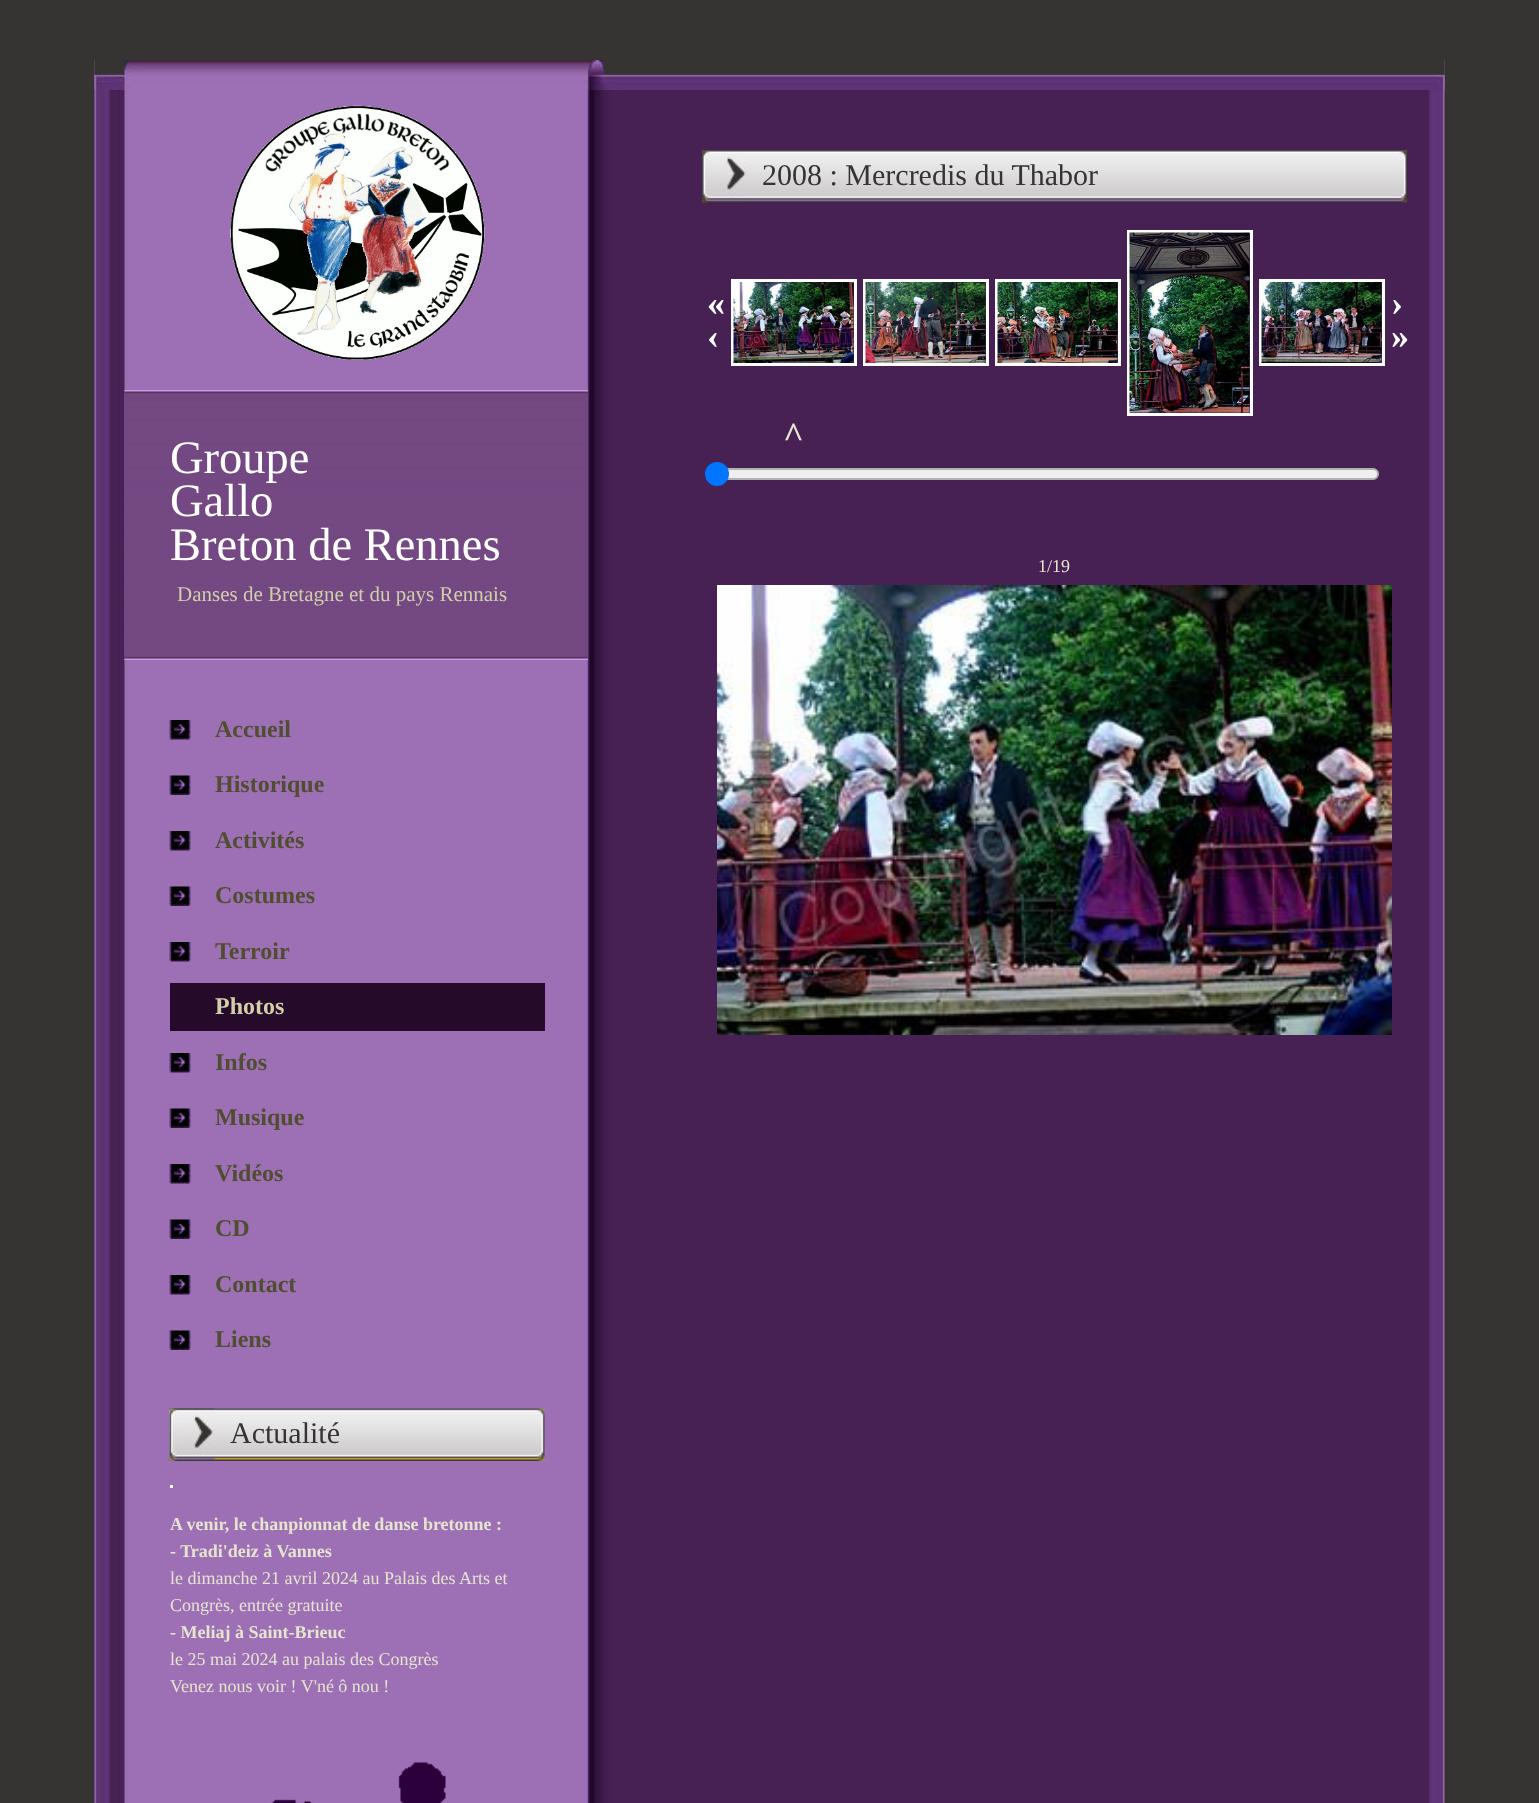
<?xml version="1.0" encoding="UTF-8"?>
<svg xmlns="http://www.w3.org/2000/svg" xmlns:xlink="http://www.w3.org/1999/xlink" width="1539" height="1803">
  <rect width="100%" height="100%" fill="#363432" />
  <image x="94" y="60" width="1351" height="1743" xlink:href="image1.png" />
  <image x="94" y="60" width="1351" height="30" xlink:href="image2.png" />
  <image x="702" y="150" width="705" height="53" xlink:href="image3.png" />
  <image x="702" y="150" width="45" height="53" xlink:href="image4.png" />
  <rect x="732.5" y="280.5" width="123" height="84" fill="none" stroke="#ffffff" stroke-width="3" />
  <image x="733" y="282" width="121" height="81" xlink:href="image5.png" />
  <rect x="864.5" y="280.5" width="123" height="84" fill="none" stroke="#ffffff" stroke-width="3" />
  <image x="865" y="282" width="121" height="81" xlink:href="image6.png" />
  <rect x="996.5" y="280.5" width="123" height="84" fill="none" stroke="#ffffff" stroke-width="3" />
  <image x="997" y="282" width="121" height="81" xlink:href="image7.png" />
  <rect x="1128.5" y="231.5" width="123" height="183" fill="none" stroke="#ffffff" stroke-width="3" />
  <image x="1129" y="232" width="121" height="181" xlink:href="image8.png" />
  <rect x="1260.5" y="280.5" width="123" height="84" fill="none" stroke="#ffffff" stroke-width="3" />
  <image x="1261" y="282" width="121" height="81" xlink:href="image9.png" />
  <rect x="708" y="469" width="670" height="10" rx="5" fill="#efefef" stroke="#b2b2b2" stroke-width="2" />
  <circle cx="717" cy="474" r="12" fill="#0075ff" />
  <image x="717" y="585" width="675" height="450" xlink:href="image10.png" />
  <image x="271" y="1762" width="175" height="41" xlink:href="image11.png" />
  <image x="230" y="105" width="255" height="255" xlink:href="image12.png" />
  <image x="124" y="390" width="464" height="270" xlink:href="image13.png" />
  <image x="169" y="720" width="22" height="20" xlink:href="image14.png" />
  <image x="169" y="775" width="22" height="20" xlink:href="image15.png" />
  <image x="169" y="831" width="22" height="20" xlink:href="image14.png" />
  <image x="169" y="886" width="22" height="20" xlink:href="image15.png" />
  <image x="169" y="942" width="22" height="20" xlink:href="image14.png" />
  <rect x="170" y="983" width="375" height="48" fill="#250a29" />
  <image x="169" y="1053" width="22" height="20" xlink:href="image14.png" />
  <image x="169" y="1108" width="22" height="20" xlink:href="image15.png" />
  <image x="169" y="1164" width="22" height="20" xlink:href="image14.png" />
  <image x="169" y="1219" width="22" height="20" xlink:href="image15.png" />
  <image x="169" y="1275" width="22" height="20" xlink:href="image14.png" />
  <image x="169" y="1330" width="22" height="20" xlink:href="image15.png" />
  <image x="169" y="1408" width="376" height="53" xlink:href="image16.png" />
  <image x="169" y="1408" width="46" height="53" xlink:href="image17.png" />
  <rect x="170" y="1485" width="3" height="3" fill="#ffffff" />
  <text x="762" y="185" style="font-family: Liberation Serif; font-size: 30px; fill: #363432">2008 : Mercredis du Thabor</text>
  <text x="707" y="315" style="font-family: Liberation Serif; font-size: 36px; font-weight: bold; fill: #ffffff">«</text>
  <text x="707" y="348" style="font-family: Liberation Serif; font-size: 36px; font-weight: bold; fill: #ffffff">‹</text>
  <text x="1391" y="315" style="font-family: Liberation Serif; font-size: 36px; font-weight: bold; fill: #ffffff">›</text>
  <text x="1391" y="348" style="font-family: Liberation Serif; font-size: 36px; font-weight: bold; fill: #ffffff">»</text>
  <text x="783" y="447" style="font-family: Liberation Serif; font-size: 36px; font-weight: bold; fill: #e5e5cf">^</text>
  <text x="1038" y="572" style="font-family: Liberation Serif; font-size: 18px; fill: #e5e5cf">1/19</text>
  <text x="170" y="473" style="font-family: Liberation Serif; font-size: 46.5px; fill: #ffffff">Groupe</text>
  <text x="170" y="516" style="font-family: Liberation Serif; font-size: 46.5px; fill: #ffffff">Gallo</text>
  <text x="170" y="560" style="font-family: Liberation Serif; font-size: 46.5px; fill: #ffffff">Breton de Rennes</text>
  <text x="177" y="601" style="font-family: Liberation Serif; font-size: 21px; fill: #d0cfaa">Danses de Bretagne et du pays Rennais</text>
  <text x="215" y="737" style="font-family: Liberation Serif; font-size: 24px; font-weight: bold; fill: #4f4e31">Accueil</text>
  <text x="215" y="792" style="font-family: Liberation Serif; font-size: 24px; font-weight: bold; fill: #4f4e31">Historique</text>
  <text x="215" y="848" style="font-family: Liberation Serif; font-size: 24px; font-weight: bold; fill: #4f4e31">Activités</text>
  <text x="215" y="903" style="font-family: Liberation Serif; font-size: 24px; font-weight: bold; fill: #4f4e31">Costumes</text>
  <text x="215" y="959" style="font-family: Liberation Serif; font-size: 24px; font-weight: bold; fill: #4f4e31">Terroir</text>
  <text x="215" y="1014" style="font-family: Liberation Serif; font-size: 24px; font-weight: bold; fill: #d0cfaa">Photos</text>
  <text x="215" y="1070" style="font-family: Liberation Serif; font-size: 24px; font-weight: bold; fill: #4f4e31">Infos</text>
  <text x="215" y="1125" style="font-family: Liberation Serif; font-size: 24px; font-weight: bold; fill: #4f4e31">Musique</text>
  <text x="215" y="1181" style="font-family: Liberation Serif; font-size: 24px; font-weight: bold; fill: #4f4e31">Vidéos</text>
  <text x="215" y="1236" style="font-family: Liberation Serif; font-size: 24px; font-weight: bold; fill: #4f4e31">CD</text>
  <text x="215" y="1292" style="font-family: Liberation Serif; font-size: 24px; font-weight: bold; fill: #4f4e31">Contact</text>
  <text x="215" y="1347" style="font-family: Liberation Serif; font-size: 24px; font-weight: bold; fill: #4f4e31">Liens</text>
  <text x="230" y="1443" style="font-family: Liberation Serif; font-size: 30px; fill: #363432">Actualité</text>
  <text x="170" y="1530" style="font-family: Liberation Serif; font-size: 18px; font-weight: bold; fill: #e5e5cf">A venir, le chanpionnat de danse bretonne :</text>
  <text x="170" y="1557" style="font-family: Liberation Serif; font-size: 18px; font-weight: bold; fill: #e5e5cf">- Tradi'deiz à Vannes</text>
  <text x="170" y="1584" style="font-family: Liberation Serif; font-size: 18px; fill: #e5e5cf">le dimanche 21 avril 2024 au Palais des Arts et</text>
  <text x="170" y="1611" style="font-family: Liberation Serif; font-size: 18px; fill: #e5e5cf">Congrès, entrée gratuite</text>
  <text x="170" y="1638" style="font-family: Liberation Serif; font-size: 18px; font-weight: bold; fill: #e5e5cf">- Meliaj à Saint-Brieuc</text>
  <text x="170" y="1665" style="font-family: Liberation Serif; font-size: 18px; fill: #e5e5cf">le 25 mai 2024 au palais des Congrès</text>
  <text x="170" y="1692" style="font-family: Liberation Serif; font-size: 18px; fill: #e5e5cf">Venez nous voir ! V'né ô nou !</text>
</svg>
